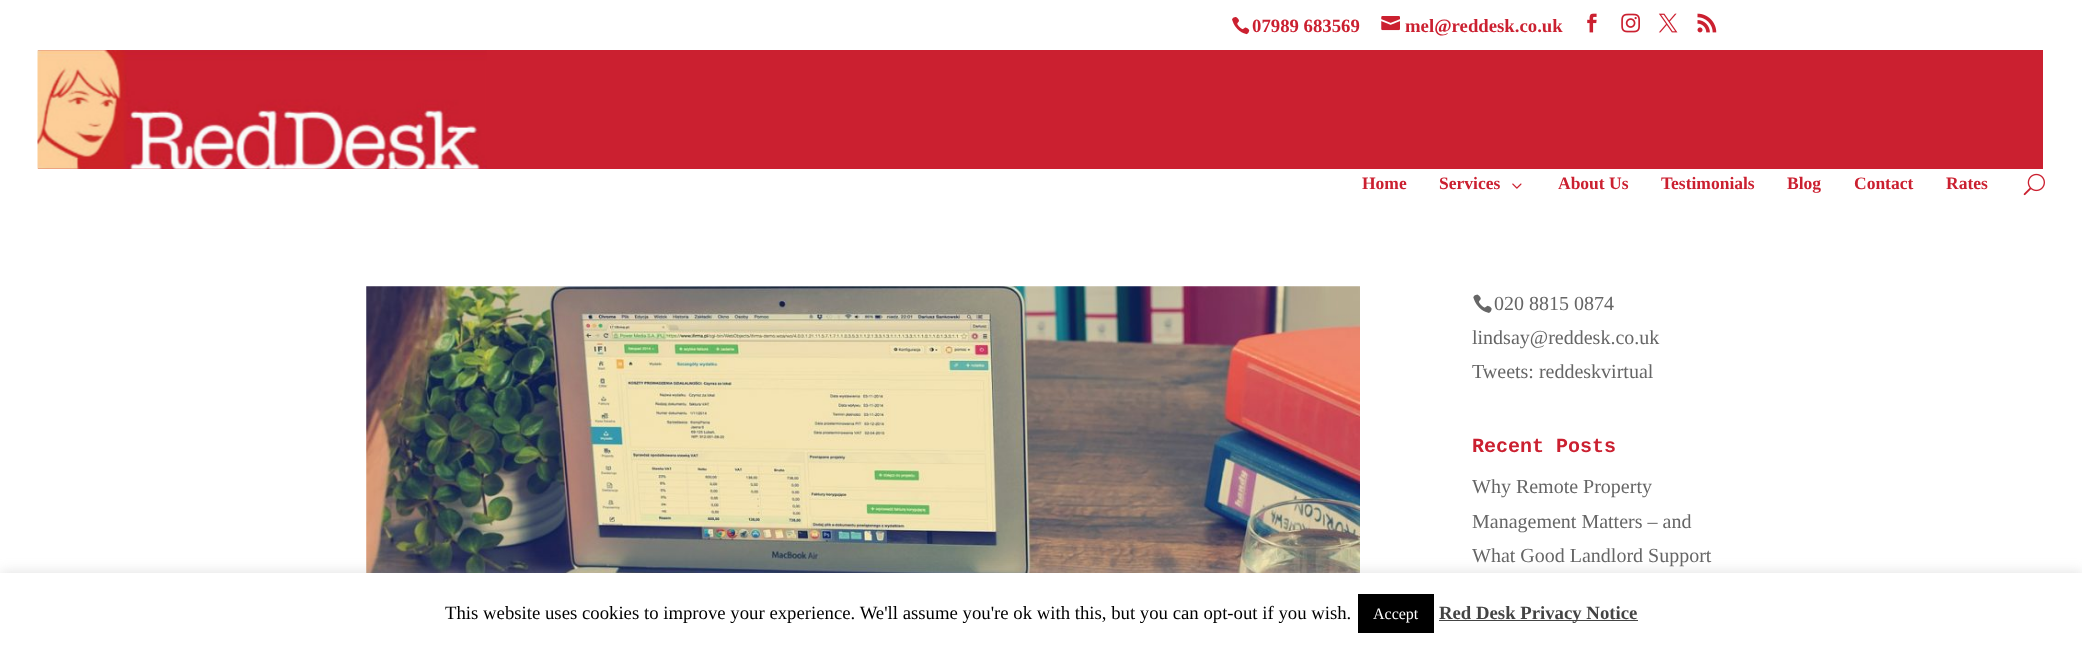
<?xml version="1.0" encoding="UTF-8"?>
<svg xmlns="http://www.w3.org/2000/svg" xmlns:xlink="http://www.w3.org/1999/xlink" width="2082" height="647">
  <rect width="100%" height="100%" fill="#ffffff" />
  <image x="1232" y="17" width="18" height="18" xlink:href="image1.png" />
  <image x="1381" y="16" width="19" height="15" xlink:href="image2.png" />
  <image x="1587" y="13" width="10" height="20" xlink:href="image3.png" />
  <image x="1621" y="13" width="19" height="20" xlink:href="image4.png" />
  <image x="1658" y="13" width="20" height="20" xlink:href="image5.png" />
  <image x="1697" y="13" width="20" height="20" xlink:href="image6.png" />
  <rect x="38" y="50" width="2005" height="119" fill="#cb2030" />
  <image x="37" y="50" width="450" height="119" xlink:href="image7.png" />
  <image x="1512" y="183" width="10" height="6" xlink:href="image8.png" />
  <image x="2023" y="173" width="22" height="23" xlink:href="image9.png" />
  <image x="366" y="286" width="994" height="287" xlink:href="image10.png" />
  <image x="1473" y="294" width="19" height="19" xlink:href="image11.png" />
  <rect y="571" width="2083" height="75" fill="#acabab" fill-opacity="0.3" filter="blur(6px)" />
  <rect y="573" width="2082" height="74" fill="#ffffff" />
  <rect x="1358" y="594" width="76" height="39" fill="#000000" />
  <rect x="1439" y="620" width="199" height="1" fill="#444444" />
  <text x="1252" y="32" style="font-family: Liberation Serif; font-size: 18.75px; font-weight: bold; fill: #cb2030">07989 683569</text>
  <text x="1405" y="32" style="font-family: Liberation Serif; font-size: 18.75px; font-weight: bold; fill: #cb2030">mel@reddesk.co.uk</text>
  <text x="1362" y="189" style="font-family: Liberation Serif; font-size: 17.5px; font-weight: bold; fill: #cb2030">Home</text>
  <text x="1439" y="189" style="font-family: Liberation Serif; font-size: 17.5px; font-weight: bold; fill: #cb2030">Services</text>
  <text x="1558" y="189" style="font-family: Liberation Serif; font-size: 17.5px; font-weight: bold; fill: #cb2030">About Us</text>
  <text x="1661" y="189" style="font-family: Liberation Serif; font-size: 17.5px; font-weight: bold; fill: #cb2030">Testimonials</text>
  <text x="1787" y="189" style="font-family: Liberation Serif; font-size: 17.5px; font-weight: bold; fill: #cb2030">Blog</text>
  <text x="1854" y="189" style="font-family: Liberation Serif; font-size: 17.5px; font-weight: bold; fill: #cb2030">Contact</text>
  <text x="1946" y="189" style="font-family: Liberation Serif; font-size: 17.5px; font-weight: bold; fill: #cb2030">Rates</text>
  <text x="1494" y="310" style="font-family: Liberation Serif; font-size: 20px; fill: #666666">020 8815 0874</text>
  <text x="1472" y="344" style="font-family: Liberation Serif; font-size: 20px; fill: #666666">lindsay@reddesk.co.uk</text>
  <text x="1472" y="378" style="font-family: Liberation Serif; font-size: 20px; fill: #666666">Tweets: reddeskvirtual</text>
  <text x="1472" y="452" style="font-family: Liberation Mono; font-size: 20px; font-weight: bold; fill: #cb2030">Recent Posts</text>
  <text x="1472" y="493" style="font-family: Liberation Serif; font-size: 20px; fill: #666666">Why Remote Property</text>
  <text x="1472" y="528" style="font-family: Liberation Serif; font-size: 20px; fill: #666666">Management Matters – and</text>
  <text x="1472" y="562" style="font-family: Liberation Serif; font-size: 20px; fill: #666666">What Good Landlord Support</text>
  <text x="445" y="619" style="font-family: Liberation Serif; font-size: 18.75px; fill: #000000">This website uses cookies to improve your experience. We'll assume you're ok with this, but you can opt-out if you wish.</text>
  <text x="1373" y="619" style="font-family: Liberation Serif; font-size: 16px; fill: #ffffff">Accept</text>
  <text x="1439" y="619" style="font-family: Liberation Serif; font-size: 18.75px; font-weight: bold; fill: #444444">Red Desk Privacy Notice</text>
</svg>
